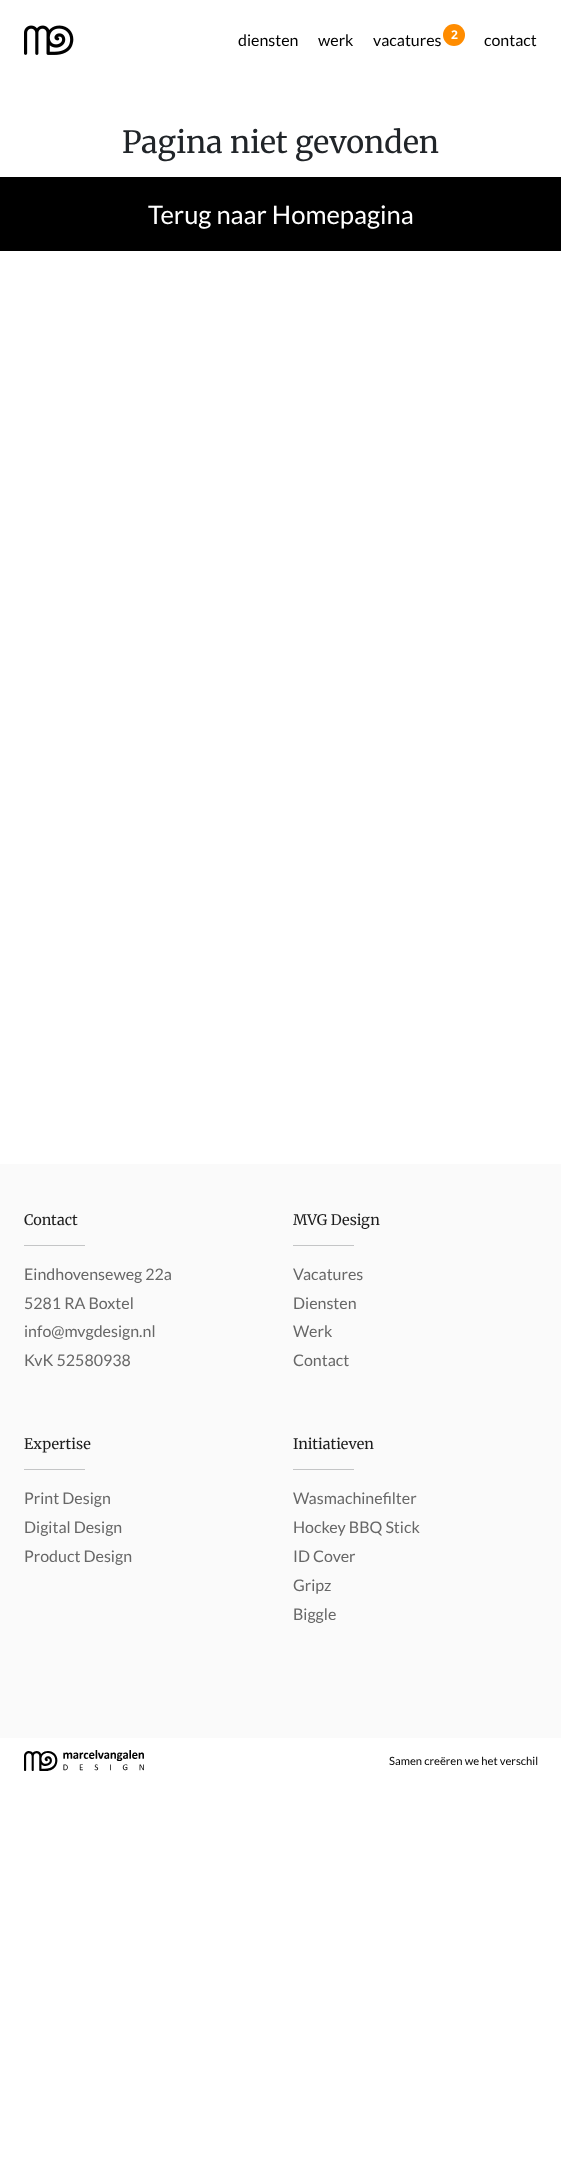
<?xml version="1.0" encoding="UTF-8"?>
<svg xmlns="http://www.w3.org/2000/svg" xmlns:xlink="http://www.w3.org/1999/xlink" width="561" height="2175">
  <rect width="100%" height="100%" fill="#ffffff" />
  <image x="24" y="25" width="50" height="30" xlink:href="image1.png" />
  <circle cx="454" cy="35" r="11" fill="#ff8c00" />
  <rect y="177" width="561" height="74" fill="#000000" />
  <rect y="1164" width="561" height="574" fill="#fafafa" />
  <rect x="24" y="1245" width="61" height="1" fill="#c4c5c6" />
  <rect x="293" y="1245" width="61" height="1" fill="#c4c5c6" />
  <rect x="24" y="1469" width="61" height="1" fill="#c4c5c6" />
  <rect x="293" y="1469" width="61" height="1" fill="#c4c5c6" />
  <image x="24" y="1750" width="120" height="21" xlink:href="image2.png" />
  <text x="238" y="46" style="font-family: Lato; font-size: 16px; fill: #000000">diensten</text>
  <text x="318" y="46" style="font-family: Lato; font-size: 16px; fill: #000000">werk</text>
  <text x="373" y="46" style="font-family: Lato; font-size: 16px; fill: #000000">vacatures</text>
  <text x="451" y="39" style="font-family: Noto Sans; font-size: 12px; font-weight: bold; fill: #ffffff">2</text>
  <text x="484" y="46" style="font-family: Lato; font-size: 16px; fill: #000000">contact</text>
  <text x="122" y="153" style="font-family: Merriweather; font-size: 30.5px; fill: #212529">Pagina niet gevonden</text>
  <text x="148" y="224" style="font-family: Lato; font-size: 25.6px; fill: #ffffff">Terug naar Homepagina</text>
  <text x="24" y="1225" style="font-family: Merriweather; font-size: 14.5px; fill: #1e1e1e">Contact</text>
  <text x="24" y="1280" style="font-family: Lato; font-size: 16px; fill: #676767">Eindhovenseweg 22a</text>
  <text x="24" y="1309" style="font-family: Lato; font-size: 16px; fill: #676767">5281 RA Boxtel</text>
  <text x="24" y="1337" style="font-family: Lato; font-size: 16px; fill: #676767">info@mvgdesign.nl</text>
  <text x="24" y="1366" style="font-family: Lato; font-size: 16px; fill: #676767">KvK 52580938</text>
  <text x="293" y="1225" style="font-family: Merriweather; font-size: 14.5px; fill: #1e1e1e">MVG Design</text>
  <text x="293" y="1280" style="font-family: Lato; font-size: 16px; fill: #676767">Vacatures</text>
  <text x="293" y="1309" style="font-family: Lato; font-size: 16px; fill: #676767">Diensten</text>
  <text x="293" y="1337" style="font-family: Lato; font-size: 16px; fill: #676767">Werk</text>
  <text x="293" y="1366" style="font-family: Lato; font-size: 16px; fill: #676767">Contact</text>
  <text x="24" y="1449" style="font-family: Merriweather; font-size: 14.5px; fill: #1e1e1e">Expertise</text>
  <text x="24" y="1504" style="font-family: Lato; font-size: 16px; fill: #676767">Print Design</text>
  <text x="24" y="1533" style="font-family: Lato; font-size: 16px; fill: #676767">Digital Design</text>
  <text x="24" y="1562" style="font-family: Lato; font-size: 16px; fill: #676767">Product Design</text>
  <text x="293" y="1449" style="font-family: Merriweather; font-size: 14.5px; fill: #1e1e1e">Initiatieven</text>
  <text x="293" y="1504" style="font-family: Lato; font-size: 16px; fill: #676767">Wasmachinefilter</text>
  <text x="293" y="1533" style="font-family: Lato; font-size: 16px; fill: #676767">Hockey BBQ Stick</text>
  <text x="293" y="1562" style="font-family: Lato; font-size: 16px; fill: #676767">ID Cover</text>
  <text x="293" y="1591" style="font-family: Lato; font-size: 16px; fill: #676767">Gripz</text>
  <text x="293" y="1620" style="font-family: Lato; font-size: 16px; fill: #676767">Biggle</text>
  <text x="389" y="1765" style="font-family: Lato; font-size: 11.25px; fill: #000000">Samen creëren we het verschil</text>
</svg>
